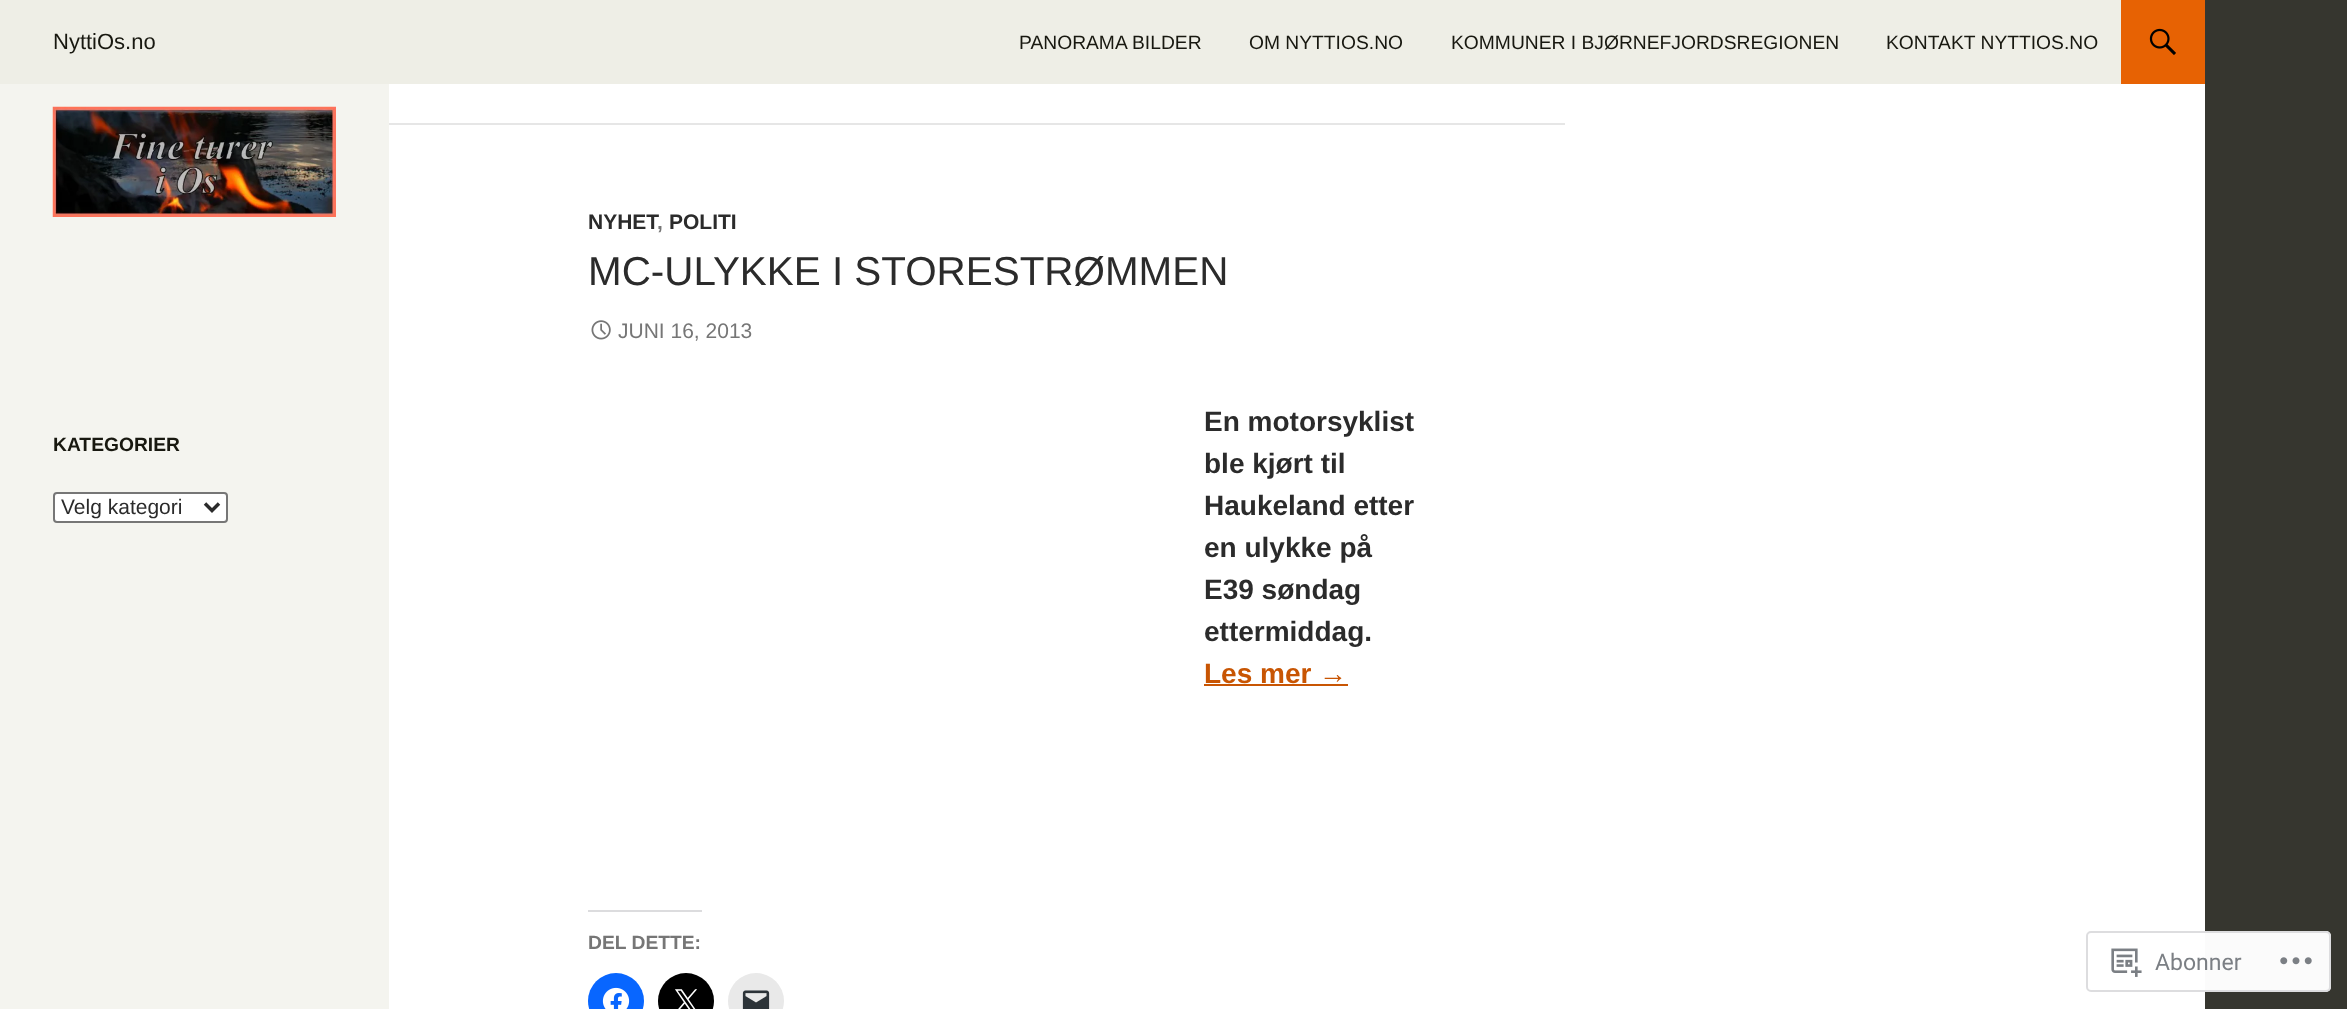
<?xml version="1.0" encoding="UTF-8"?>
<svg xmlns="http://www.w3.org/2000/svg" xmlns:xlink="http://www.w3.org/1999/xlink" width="2347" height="1009">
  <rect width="100%" height="100%" fill="#36362f" />
  <rect x="389" y="84" width="1816" height="925" fill="#ffffff" />
  <rect width="2121" height="84" fill="#eeeee6" />
  <rect x="2121" width="84" height="84" fill="#e76203" />
  <image x="2149" y="28" width="27" height="27" xlink:href="image1.png" />
  <rect y="84" width="389" height="925" fill="#f4f4ef" />
  <image x="52" y="106" width="284" height="111" xlink:href="image2.png" />
  <rect x="54" y="493" width="173" height="29" rx="3" fill="#ffffff" stroke="#767676" stroke-width="2" />
  <path d="M 205 503.5 l 7 7 l 7 -7" fill="none" stroke="#2b2b2b" stroke-width="3.5" />
  <rect x="389" y="123" width="1176" height="2" fill="#e6e6e6" />
  <image x="591" y="320" width="20" height="20" xlink:href="image3.png" />
  <rect x="1204" y="684" width="144" height="2" fill="#c85503" />
  <rect x="588" y="910" width="114" height="2" fill="#dcdcde" />
  <circle cx="616" cy="1001" r="28" fill="#0866ff" />
  <image x="602" y="987" width="28" height="22" xlink:href="image4.png" />
  <circle cx="686" cy="1001" r="28" fill="#000000" />
  <image x="675" y="989" width="22" height="20" xlink:href="image5.png" />
  <circle cx="756" cy="1001" r="28" fill="#e9e9e9" />
  <image x="742" y="990" width="28" height="19" xlink:href="image6.png" />
  <rect x="2086" y="931" width="245" height="61" rx="5" fill="#ffffff" fill-opacity="0.98" />
  <rect x="2087" y="932" width="243" height="59" rx="4" fill="none" stroke="#dcdcde" stroke-opacity="0.98" stroke-width="2" />
  <image x="2111" y="948" width="31" height="29" xlink:href="image7.png" />
  <image x="2280" y="957" width="32" height="8" xlink:href="image8.png" />
  <text x="53" y="49" style="font-family: Arimo; font-size: 22px; fill: #181810">NyttiOs.no</text>
  <text x="1019" y="49" style="font-family: Arimo; font-size: 19.25px; fill: #181810">PANORAMA BILDER</text>
  <text x="1249" y="49" style="font-family: Arimo; font-size: 19.25px; fill: #181810">OM NYTTIOS.NO</text>
  <text x="1451" y="49" style="font-family: Arimo; font-size: 19.25px; fill: #181810">KOMMUNER I BJØRNEFJORDSREGIONEN</text>
  <text x="1886" y="49" style="font-family: Arimo; font-size: 19.25px; fill: #181810">KONTAKT NYTTIOS.NO</text>
  <text x="53" y="451" style="font-family: Arimo; font-size: 19.25px; font-weight: bold; fill: #181810">KATEGORIER</text>
  <text x="61" y="514" style="font-family: Arimo; font-size: 21px; fill: #2b2b2b">Velg kategori</text>
  <text x="588" y="229" style="font-family: Arimo; font-size: 21px; font-weight: bold; fill: #2b2b2b">NYHET</text>
  <text x="657" y="229" style="font-family: Arimo; font-size: 21px; font-weight: bold; fill: #767676">,</text>
  <text x="669" y="229" style="font-family: Arimo; font-size: 21px; font-weight: bold; fill: #2b2b2b">POLITI</text>
  <text x="588" y="285" style="font-family: Arimo; font-size: 40.4px; fill: #2b2b2b">MC-ULYKKE I STORESTRØMMEN</text>
  <text x="618" y="338" style="font-family: Arimo; font-size: 21px; fill: #767676">JUNI 16, 2013</text>
  <text x="1204" y="431" style="font-family: Arimo; font-size: 28px; font-weight: bold; fill: #2b2b2b">En motorsyklist</text>
  <text x="1204" y="473" style="font-family: Arimo; font-size: 28px; font-weight: bold; fill: #2b2b2b">ble kjørt til</text>
  <text x="1204" y="515" style="font-family: Arimo; font-size: 28px; font-weight: bold; fill: #2b2b2b">Haukeland etter</text>
  <text x="1204" y="557" style="font-family: Arimo; font-size: 28px; font-weight: bold; fill: #2b2b2b">en ulykke på</text>
  <text x="1204" y="599" style="font-family: Arimo; font-size: 28px; font-weight: bold; fill: #2b2b2b">E39 søndag</text>
  <text x="1204" y="641" style="font-family: Arimo; font-size: 28px; font-weight: bold; fill: #2b2b2b">ettermiddag.</text>
  <text x="1204" y="683" style="font-family: Arimo; font-size: 28px; font-weight: bold; fill: #c85503">Les mer</text>
  <text x="1319" y="683" style="font-family: Liberation Sans; font-size: 28px; font-weight: bold; fill: #c85503">→</text>
  <text x="588" y="949" style="font-family: Arimo; font-size: 19.25px; font-weight: bold; fill: #767676">DEL DETTE:</text>
  <text x="2155" y="970" style="font-family: Roboto; font-size: 23px; fill: #7b7f84">Abonner</text>
</svg>
